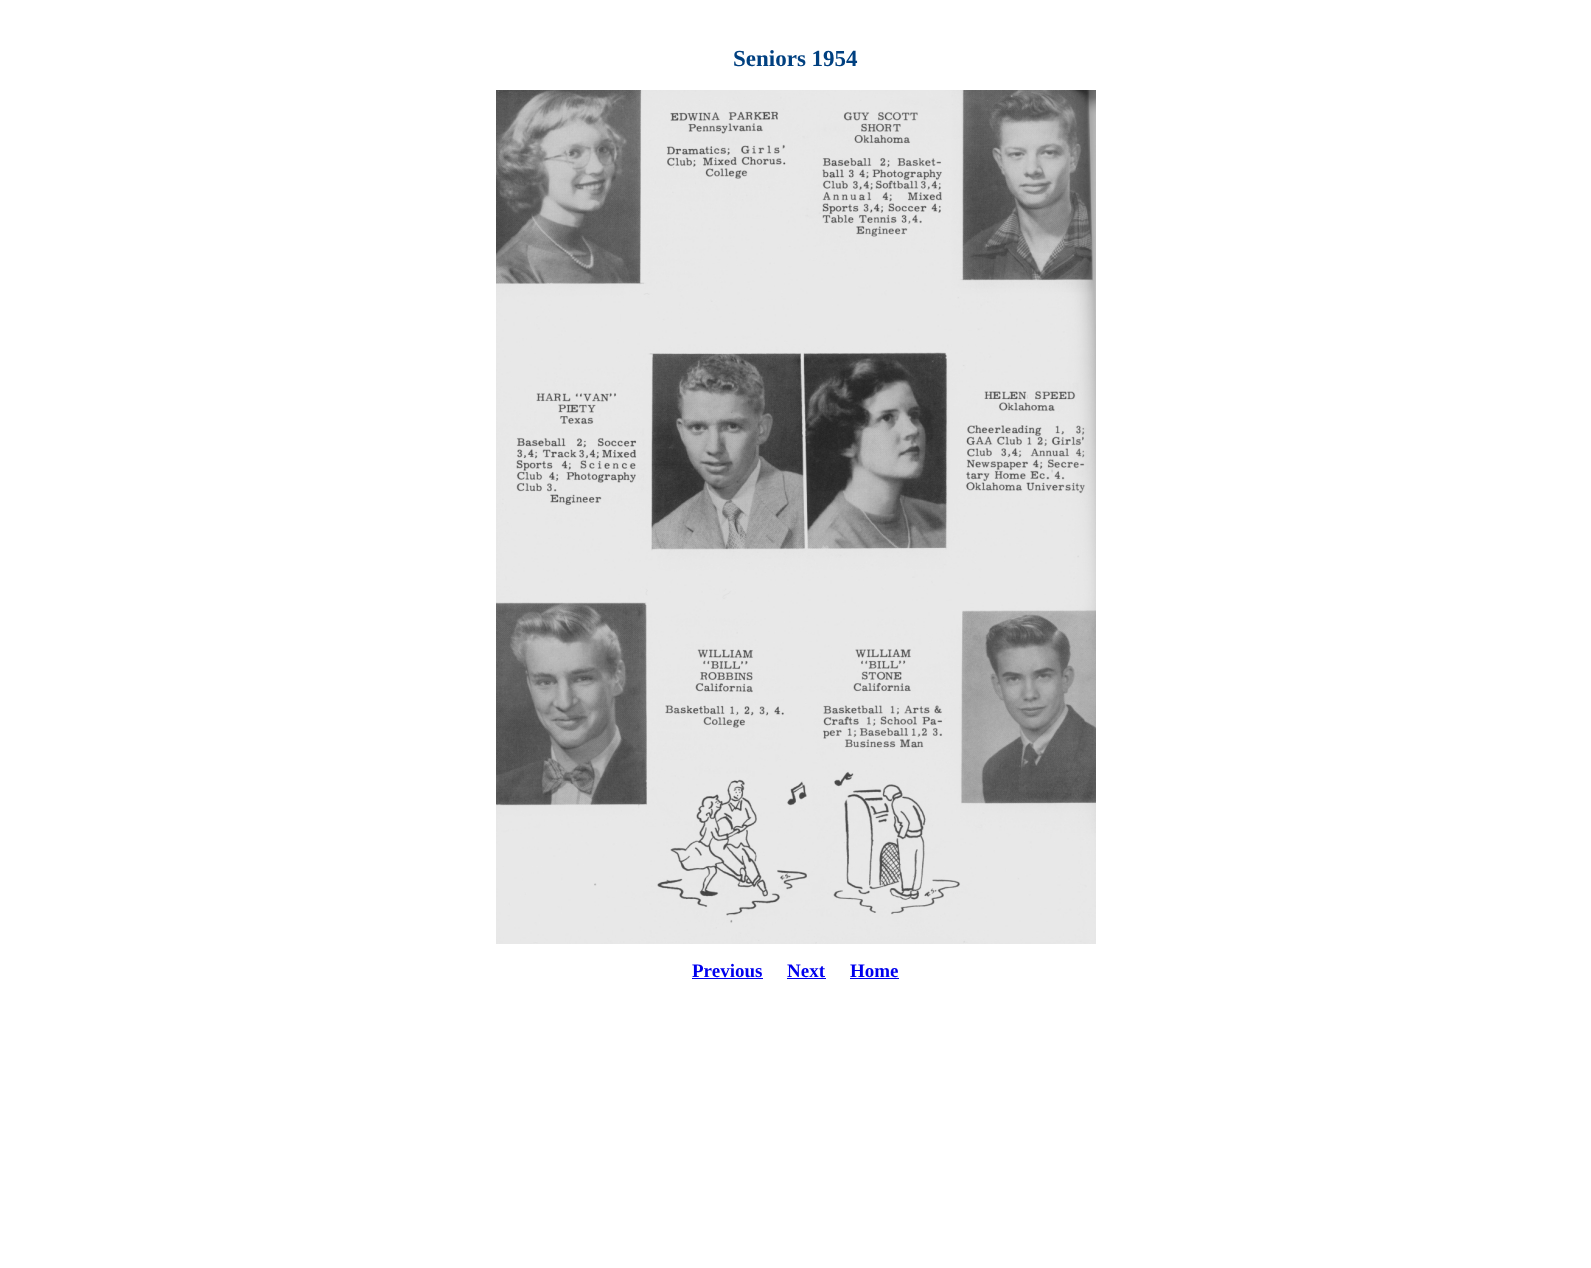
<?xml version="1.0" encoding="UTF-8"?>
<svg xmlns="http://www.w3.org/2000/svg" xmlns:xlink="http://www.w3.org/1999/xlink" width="1591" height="1268">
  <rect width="100%" height="100%" fill="#ffffff" />
  <image x="496" y="90" width="600" height="854" xlink:href="image1.png" />
  <rect x="692" y="978" width="71" height="1" fill="#0000ee" />
  <rect x="787" y="978" width="39" height="1" fill="#0000ee" />
  <rect x="850" y="978" width="49" height="1" fill="#0000ee" />
  <text x="733" y="66" style="font-family: Liberation Serif; font-size: 23px; font-weight: bold; fill: #004080">Seniors 1954</text>
  <text x="692" y="977" style="font-family: Liberation Serif; font-size: 19px; font-weight: bold; fill: #0000ee">Previous</text>
  <text x="787" y="977" style="font-family: Liberation Serif; font-size: 19px; font-weight: bold; fill: #0000ee">Next</text>
  <text x="850" y="977" style="font-family: Liberation Serif; font-size: 19px; font-weight: bold; fill: #0000ee">Home</text>
</svg>
